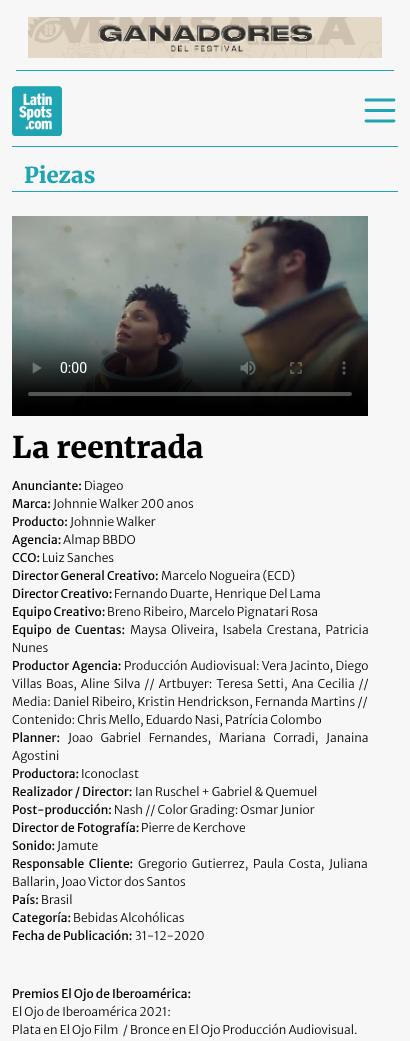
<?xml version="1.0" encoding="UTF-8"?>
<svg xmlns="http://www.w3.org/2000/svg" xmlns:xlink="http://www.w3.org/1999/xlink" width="410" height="1041">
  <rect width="100%" height="100%" fill="#f7f7f7" />
  <rect x="16" y="70" width="378" height="1" fill="#1ea4b2" />
  <image x="28" y="17" width="354" height="41" xlink:href="image1.png" />
  <rect x="12" y="146" width="386" height="1" fill="#1ea4b2" />
  <image x="12" y="86" width="50" height="50" xlink:href="image2.png" />
  <path d="M 366 100 h 28 m -28 10.5 h 28 m -28 10.5 h 28" fill="none" stroke="#1ea4b2" stroke-width="2.8" stroke-linecap="round" stroke-linejoin="round" />
  <rect x="12" y="191" width="386" height="1" fill="#1ea4b2" />
  <image x="12" y="216" width="356" height="200" xlink:href="image3.png" />
  <text x="24" y="183" style="font-family: Merriweather; font-size: 22px; font-weight: 900; fill: #1ea4b2">Piezas</text>
  <text x="12" y="458" style="font-family: Merriweather; font-size: 30px; font-weight: 900; fill: #000000">La reentrada</text>
  <text x="12" y="490" style="font-family: Merriweather Sans; font-size: 12px; fill: #000000">Anunciante:</text>
  <text x="84" y="490" style="font-family: Merriweather Sans; font-size: 12px; font-weight: 300; fill: #000000">Diageo</text>
  <text x="12" y="508" style="font-family: Merriweather Sans; font-size: 12px; fill: #000000">Marca:</text>
  <text x="53" y="508" style="font-family: Merriweather Sans; font-size: 12px; font-weight: 300; fill: #000000">Johnnie Walker 200 anos</text>
  <text x="12" y="526" style="font-family: Merriweather Sans; font-size: 12px; fill: #000000">Producto:</text>
  <text x="70" y="526" style="font-family: Merriweather Sans; font-size: 12px; font-weight: 300; fill: #000000">Johnnie Walker</text>
  <text x="12" y="544" style="font-family: Merriweather Sans; font-size: 12px; fill: #000000">Agencia:</text>
  <text x="63" y="544" style="font-family: Merriweather Sans; font-size: 12px; font-weight: 300; fill: #000000">Almap BBDO</text>
  <text x="12" y="562" style="font-family: Merriweather Sans; font-size: 12px; fill: #000000">CCO:</text>
  <text x="42" y="562" style="font-family: Merriweather Sans; font-size: 12px; font-weight: 300; fill: #000000">Luiz Sanches</text>
  <text x="12" y="580" style="font-family: Merriweather Sans; font-size: 12px; fill: #000000">Director General Creativo:</text>
  <text x="161" y="580" style="font-family: Merriweather Sans; font-size: 12px; font-weight: 300; fill: #000000">Marcelo Nogueira (ECD)</text>
  <text x="12" y="598" style="font-family: Merriweather Sans; font-size: 12px; fill: #000000">Director Creativo:</text>
  <text x="114" y="598" style="font-family: Merriweather Sans; font-size: 12px; font-weight: 300; fill: #000000">Fernando Duarte, Henrique Del Lama</text>
  <text x="12" y="616" style="font-family: Merriweather Sans; font-size: 12px; fill: #000000">Equipo Creativo:</text>
  <text x="107" y="616" style="font-family: Merriweather Sans; font-size: 12px; font-weight: 300; fill: #000000">Breno Ribeiro, Marcelo Pignatari Rosa</text>
  <text x="12" y="634" word-spacing="2.5" style="font-family: Merriweather Sans; font-size: 12px; fill: #000000">Equipo de Cuentas:</text>
  <text x="130" y="634" word-spacing="2.5" style="font-family: Merriweather Sans; font-size: 12px; font-weight: 300; fill: #000000">Maysa Oliveira, Isabela Crestana, Patricia</text>
  <text x="12" y="652" style="font-family: Merriweather Sans; font-size: 12px; font-weight: 300; fill: #000000">Nunes</text>
  <text x="12" y="670" word-spacing="1" style="font-family: Merriweather Sans; font-size: 12px; fill: #000000">Productor Agencia:</text>
  <text x="124" y="670" word-spacing="0.5" style="font-family: Merriweather Sans; font-size: 12px; font-weight: 300; fill: #000000">Producción Audiovisual: Vera Jacinto, Diego</text>
  <text x="12" y="688" word-spacing="1.75" style="font-family: Merriweather Sans; font-size: 12px; font-weight: 300; fill: #000000">Villas Boas, Aline Silva // Artbuyer: Teresa Setti, Ana Cecilia //</text>
  <text x="12" y="706" word-spacing="0.25" style="font-family: Merriweather Sans; font-size: 12px; font-weight: 300; fill: #000000">Media: Daniel Ribeiro, Kristin Hendrickson, Fernanda Martins //</text>
  <text x="12" y="724" style="font-family: Merriweather Sans; font-size: 12px; font-weight: 300; fill: #000000">Contenido: Chris Mello, Eduardo Nasi, Patrícia Colombo</text>
  <text x="12" y="742" style="font-family: Merriweather Sans; font-size: 12px; fill: #000000">Planner:</text>
  <text x="68" y="742" word-spacing="5.5" style="font-family: Merriweather Sans; font-size: 12px; font-weight: 300; fill: #000000">Joao Gabriel Fernandes, Mariana Corradi, Janaina</text>
  <text x="12" y="760" style="font-family: Merriweather Sans; font-size: 12px; font-weight: 300; fill: #000000">Agostini</text>
  <text x="12" y="778" style="font-family: Merriweather Sans; font-size: 12px; fill: #000000">Productora:</text>
  <text x="81" y="778" style="font-family: Merriweather Sans; font-size: 12px; font-weight: 300; fill: #000000">Iconoclast</text>
  <text x="12" y="796" style="font-family: Merriweather Sans; font-size: 12px; fill: #000000">Realizador / Director:</text>
  <text x="135" y="796" style="font-family: Merriweather Sans; font-size: 12px; font-weight: 300; fill: #000000">Ian Ruschel + Gabriel &amp; Quemuel</text>
  <text x="12" y="814" style="font-family: Merriweather Sans; font-size: 12px; fill: #000000">Post-producción:</text>
  <text x="114" y="814" style="font-family: Merriweather Sans; font-size: 12px; font-weight: 300; fill: #000000">Nash // Color Grading: Osmar Junior</text>
  <text x="12" y="832" style="font-family: Merriweather Sans; font-size: 12px; fill: #000000">Director de Fotografía:</text>
  <text x="141" y="832" style="font-family: Merriweather Sans; font-size: 12px; font-weight: 300; fill: #000000">Pierre de Kerchove</text>
  <text x="12" y="850" style="font-family: Merriweather Sans; font-size: 12px; fill: #000000">Sonido:</text>
  <text x="57" y="850" style="font-family: Merriweather Sans; font-size: 12px; font-weight: 300; fill: #000000">Jamute</text>
  <text x="12" y="868" word-spacing="2.5" style="font-family: Merriweather Sans; font-size: 12px; fill: #000000">Responsable Cliente:</text>
  <text x="138" y="868" word-spacing="2.5" style="font-family: Merriweather Sans; font-size: 12px; font-weight: 300; fill: #000000">Gregorio Gutierrez, Paula Costa, Juliana</text>
  <text x="12" y="886" style="font-family: Merriweather Sans; font-size: 12px; font-weight: 300; fill: #000000">Ballarin, Joao Victor dos Santos</text>
  <text x="12" y="904" style="font-family: Merriweather Sans; font-size: 12px; fill: #000000">País:</text>
  <text x="41" y="904" style="font-family: Merriweather Sans; font-size: 12px; font-weight: 300; fill: #000000">Brasil</text>
  <text x="12" y="922" style="font-family: Merriweather Sans; font-size: 12px; fill: #000000">Categoría:</text>
  <text x="73" y="922" style="font-family: Merriweather Sans; font-size: 12px; font-weight: 300; fill: #000000">Bebidas Alcohólicas</text>
  <text x="12" y="940" style="font-family: Merriweather Sans; font-size: 12px; fill: #000000">Fecha de Publicación:</text>
  <text x="135" y="940" style="font-family: Merriweather Sans; font-size: 12px; font-weight: 300; fill: #000000">31-12-2020</text>
  <text x="12" y="998" style="font-family: Merriweather Sans; font-size: 12px; fill: #000000">Premios El Ojo de Iberoamérica:</text>
  <text x="12" y="1016" style="font-family: Merriweather Sans; font-size: 12px; font-weight: 300; fill: #000000">El Ojo de Iberoamérica 2021:</text>
  <text x="12" y="1034" style="font-family: Merriweather Sans; font-size: 12px; font-weight: 300; fill: #000000" xml:space="preserve">Plata en El Ojo Film  / Bronce en El Ojo Producción Audiovisual.</text>
</svg>
